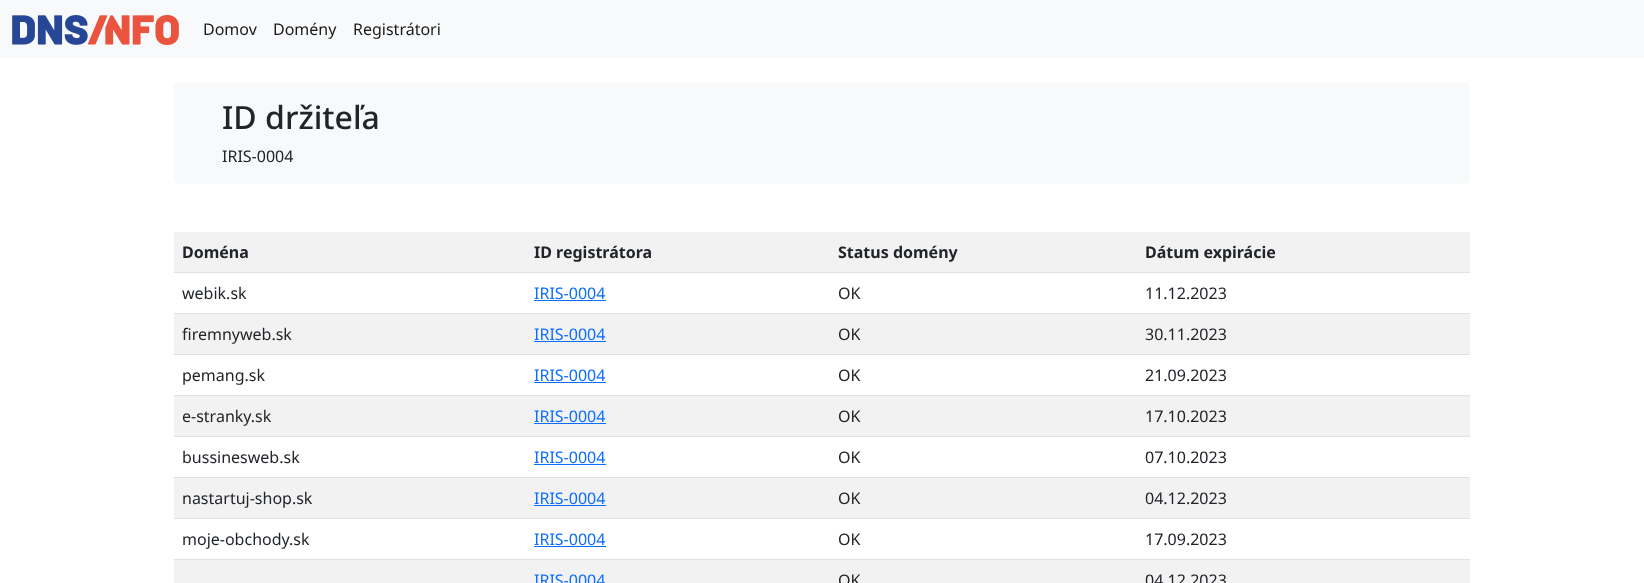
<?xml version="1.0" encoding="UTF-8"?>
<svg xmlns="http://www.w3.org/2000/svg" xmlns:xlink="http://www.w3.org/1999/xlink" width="1644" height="583">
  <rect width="100%" height="100%" fill="#ffffff" />
  <rect width="1644" height="58" fill="#f8f9fa" />
  <image x="12" y="15" width="167" height="30" xlink:href="image1.png" />
  <rect x="174" y="82" width="1296" height="102" rx="5" fill="#f8f9fa" />
  <rect x="174" y="232" width="1296" height="40" fill="#f2f2f2" />
  <rect x="174" y="272" width="1296" height="1" fill="#dee2e6" />
  <rect x="534" y="300" width="72" height="1" fill="#0d6efd" />
  <rect x="174" y="313" width="1296" height="1" fill="#dee2e6" />
  <rect x="174" y="314" width="1296" height="40" fill="#f2f2f2" />
  <rect x="534" y="341" width="72" height="1" fill="#0d6efd" />
  <rect x="174" y="354" width="1296" height="1" fill="#dee2e6" />
  <rect x="534" y="382" width="72" height="1" fill="#0d6efd" />
  <rect x="174" y="395" width="1296" height="1" fill="#dee2e6" />
  <rect x="174" y="396" width="1296" height="40" fill="#f2f2f2" />
  <rect x="534" y="423" width="72" height="1" fill="#0d6efd" />
  <rect x="174" y="436" width="1296" height="1" fill="#dee2e6" />
  <rect x="534" y="464" width="72" height="1" fill="#0d6efd" />
  <rect x="174" y="477" width="1296" height="1" fill="#dee2e6" />
  <rect x="174" y="478" width="1296" height="40" fill="#f2f2f2" />
  <rect x="534" y="505" width="72" height="1" fill="#0d6efd" />
  <rect x="174" y="518" width="1296" height="1" fill="#dee2e6" />
  <rect x="534" y="546" width="72" height="1" fill="#0d6efd" />
  <rect x="174" y="559" width="1296" height="1" fill="#dee2e6" />
  <rect x="174" y="560" width="1296" height="23" fill="#f2f2f2" />
  <text x="203" y="35" style="font-family: Noto Sans; font-size: 16px; fill: #191919">Domov</text>
  <text x="273" y="35" style="font-family: Noto Sans; font-size: 16px; fill: #191919">Domény</text>
  <text x="353" y="35" style="font-family: Noto Sans; font-size: 16px; fill: #191919">Registrátori</text>
  <text x="222" y="129" style="font-family: Noto Sans; font-size: 32px; font-weight: 500; fill: #212529">ID držiteľa</text>
  <text x="222" y="162" style="font-family: Noto Sans; font-size: 16px; fill: #212529">IRIS-0004</text>
  <text x="182" y="258" style="font-family: Noto Sans; font-size: 16px; font-weight: bold; fill: #212529">Doména</text>
  <text x="534" y="258" style="font-family: Noto Sans; font-size: 16px; font-weight: bold; fill: #212529">ID registrátora</text>
  <text x="838" y="258" style="font-family: Noto Sans; font-size: 16px; font-weight: bold; fill: #212529">Status domény</text>
  <text x="1145" y="258" style="font-family: Noto Sans; font-size: 16px; font-weight: bold; fill: #212529">Dátum expirácie</text>
  <text x="182" y="299" style="font-family: Noto Sans; font-size: 16px; fill: #212529">webik.sk</text>
  <text x="534" y="299" style="font-family: Noto Sans; font-size: 16px; fill: #0d6efd">IRIS-0004</text>
  <text x="838" y="299" style="font-family: Noto Sans; font-size: 16px; fill: #212529">OK</text>
  <text x="1145" y="299" style="font-family: Noto Sans; font-size: 16px; fill: #212529">11.12.2023</text>
  <text x="182" y="340" style="font-family: Noto Sans; font-size: 16px; fill: #212529">firemnyweb.sk</text>
  <text x="534" y="340" style="font-family: Noto Sans; font-size: 16px; fill: #0d6efd">IRIS-0004</text>
  <text x="838" y="340" style="font-family: Noto Sans; font-size: 16px; fill: #212529">OK</text>
  <text x="1145" y="340" style="font-family: Noto Sans; font-size: 16px; fill: #212529">30.11.2023</text>
  <text x="182" y="381" style="font-family: Noto Sans; font-size: 16px; fill: #212529">pemang.sk</text>
  <text x="534" y="381" style="font-family: Noto Sans; font-size: 16px; fill: #0d6efd">IRIS-0004</text>
  <text x="838" y="381" style="font-family: Noto Sans; font-size: 16px; fill: #212529">OK</text>
  <text x="1145" y="381" style="font-family: Noto Sans; font-size: 16px; fill: #212529">21.09.2023</text>
  <text x="182" y="422" style="font-family: Noto Sans; font-size: 16px; fill: #212529">e-stranky.sk</text>
  <text x="534" y="422" style="font-family: Noto Sans; font-size: 16px; fill: #0d6efd">IRIS-0004</text>
  <text x="838" y="422" style="font-family: Noto Sans; font-size: 16px; fill: #212529">OK</text>
  <text x="1145" y="422" style="font-family: Noto Sans; font-size: 16px; fill: #212529">17.10.2023</text>
  <text x="182" y="463" style="font-family: Noto Sans; font-size: 16px; fill: #212529">bussinesweb.sk</text>
  <text x="534" y="463" style="font-family: Noto Sans; font-size: 16px; fill: #0d6efd">IRIS-0004</text>
  <text x="838" y="463" style="font-family: Noto Sans; font-size: 16px; fill: #212529">OK</text>
  <text x="1145" y="463" style="font-family: Noto Sans; font-size: 16px; fill: #212529">07.10.2023</text>
  <text x="182" y="504" style="font-family: Noto Sans; font-size: 16px; fill: #212529">nastartuj-shop.sk</text>
  <text x="534" y="504" style="font-family: Noto Sans; font-size: 16px; fill: #0d6efd">IRIS-0004</text>
  <text x="838" y="504" style="font-family: Noto Sans; font-size: 16px; fill: #212529">OK</text>
  <text x="1145" y="504" style="font-family: Noto Sans; font-size: 16px; fill: #212529">04.12.2023</text>
  <text x="182" y="545" style="font-family: Noto Sans; font-size: 16px; fill: #212529">moje-obchody.sk</text>
  <text x="534" y="545" style="font-family: Noto Sans; font-size: 16px; fill: #0d6efd">IRIS-0004</text>
  <text x="838" y="545" style="font-family: Noto Sans; font-size: 16px; fill: #212529">OK</text>
  <text x="1145" y="545" style="font-family: Noto Sans; font-size: 16px; fill: #212529">17.09.2023</text>
  <text x="534" y="586" style="font-family: Noto Sans; font-size: 16px; fill: #0d6efd">IRIS-0004</text>
  <text x="838" y="586" style="font-family: Noto Sans; font-size: 16px; fill: #212529">OK</text>
  <text x="1145" y="586" style="font-family: Noto Sans; font-size: 16px; fill: #212529">04.12.2023</text>
</svg>
